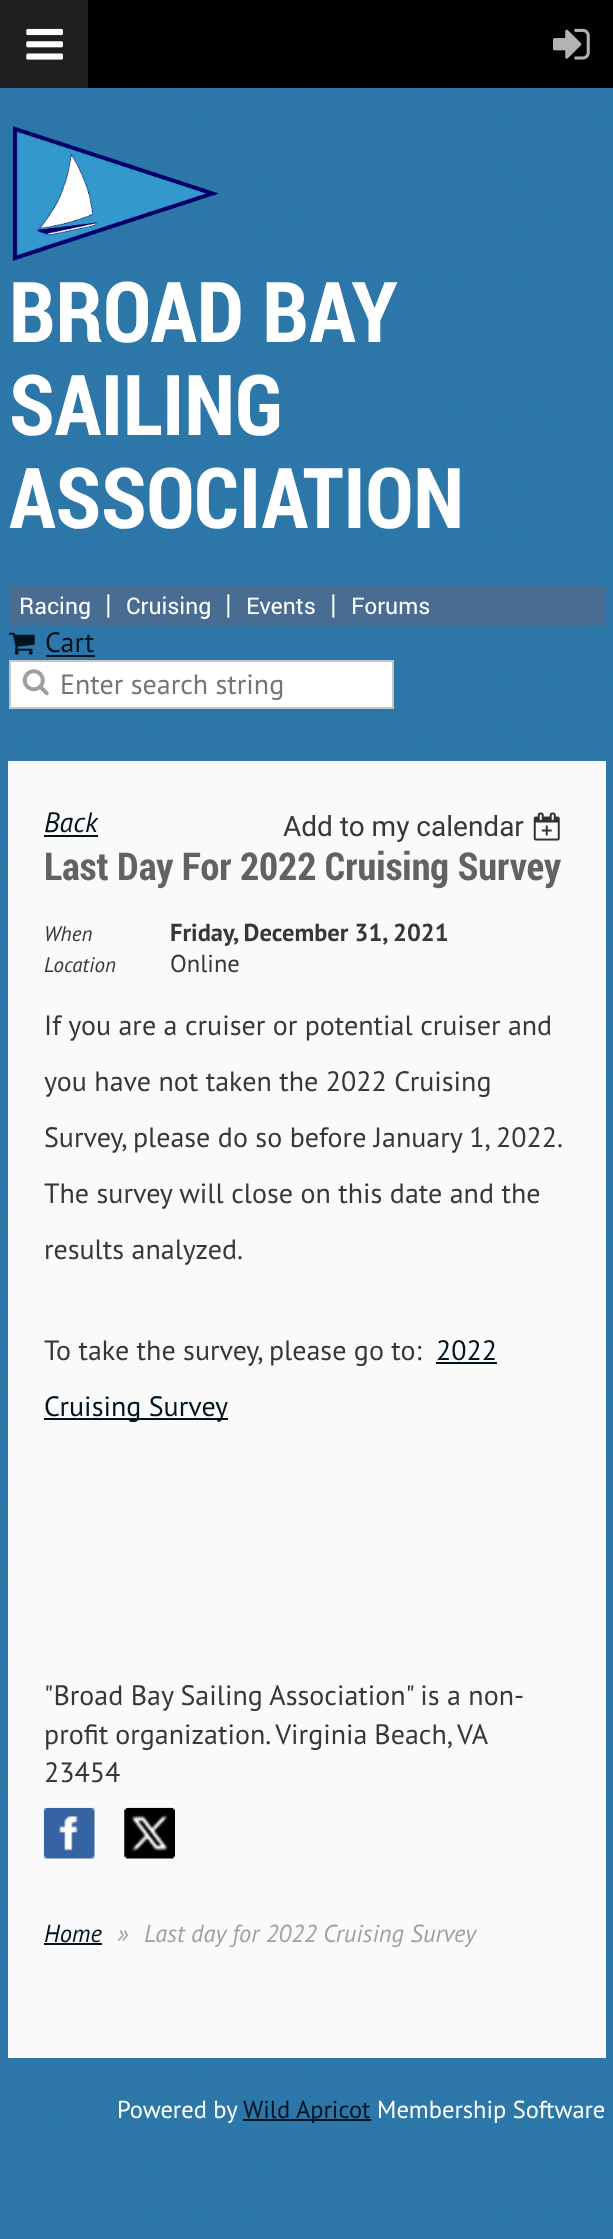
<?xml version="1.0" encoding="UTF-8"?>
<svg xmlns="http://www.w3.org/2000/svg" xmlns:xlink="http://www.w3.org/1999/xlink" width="613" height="2239">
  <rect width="100%" height="100%" fill="#ffffff" />
  <image x="0" y="88" width="613" height="2151" xlink:href="image1.png" />
  <rect x="88" width="525" height="88" fill="#000000" />
  <rect width="88" height="88" fill="#1f1f1f" />
  <image x="26" y="28" width="37" height="32" xlink:href="image2.png" />
  <image x="553" y="28" width="37" height="32" xlink:href="image3.png" />
  <image x="12" y="126" width="207" height="135" xlink:href="image4.png" />
  <rect x="9" y="586" width="597" height="39" fill="#496c92" />
  <image x="9" y="632" width="26" height="23" xlink:href="image5.png" />
  <rect x="46" y="655" width="49" height="2" fill="#01131f" />
  <rect x="10" y="661" width="383" height="47" fill="#ffffff" stroke="#c6c6c6" stroke-width="2" />
  <image x="22" y="669" width="27" height="27" xlink:href="image6.png" />
  <rect x="605" y="761" width="1" height="1297" fill="#ffffff" />
  <rect x="8" y="761" width="597" height="1297" fill="#fafafa" />
  <rect x="44" y="835" width="54" height="2" fill="#01131f" />
  <image x="533" y="812" width="27" height="29" xlink:href="image7.png" />
  <rect x="436" y="1362" width="61" height="2" fill="#01131f" />
  <rect x="44" y="1418" width="184" height="2" fill="#01131f" />
  <image x="43" y="1807" width="52" height="52" xlink:href="image8.png" />
  <image x="124" y="1807" width="51" height="52" xlink:href="image9.png" />
  <rect x="44" y="1943" width="58" height="2" fill="#01131f" />
  <rect x="243" y="2119" width="128" height="2" fill="#01131f" />
  <text x="9" y="342" style="font-family: Roboto Condensed; font-size: 84px; font-weight: bold; fill: #ffffff">BROAD BAY</text>
  <text x="9" y="435" style="font-family: Roboto Condensed; font-size: 84px; font-weight: bold; fill: #ffffff">SAILING</text>
  <text x="9" y="528" style="font-family: Roboto Condensed; font-size: 84px; font-weight: bold; fill: #ffffff">ASSOCIATION</text>
  <text x="19" y="614" style="font-family: Roboto; font-size: 23px; fill: #ffffff">Racing</text>
  <text x="105" y="614" style="font-family: PT Sans; font-size: 28px; fill: #ffffff">|</text>
  <text x="126" y="614" style="font-family: Roboto; font-size: 23px; fill: #ffffff">Cruising</text>
  <text x="225" y="614" style="font-family: PT Sans; font-size: 28px; fill: #ffffff">|</text>
  <text x="246" y="614" style="font-family: Roboto; font-size: 23px; fill: #ffffff">Events</text>
  <text x="330" y="614" style="font-family: PT Sans; font-size: 28px; fill: #ffffff">|</text>
  <text x="351" y="614" style="font-family: Roboto; font-size: 23px; fill: #ffffff">Forums</text>
  <text x="45" y="652" style="font-family: PT Sans; font-size: 28px; fill: #01131f">Cart</text>
  <text x="60" y="694" style="font-family: PT Sans; font-size: 28px; fill: #757575">Enter search string</text>
  <text x="44" y="832" style="font-family: PT Sans; font-size: 28px; font-style: italic; fill: #01131f">Back</text>
  <text x="283" y="836" style="font-family: 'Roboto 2'; font-size: 28px; fill: #373737">Add to my calendar</text>
  <text x="44" y="880" style="font-family: Roboto Condensed; font-size: 38.5px; font-weight: bold; fill: #626262">Last Day For 2022 Cruising Survey</text>
  <text x="44" y="941" style="font-family: PT Sans; font-size: 21px; font-style: italic; fill: #373737">When</text>
  <text x="170" y="941" style="font-family: PT Sans; font-size: 24.5px; font-weight: bold; fill: #373737">Friday, December 31, 2021</text>
  <text x="44" y="972" style="font-family: PT Sans; font-size: 21px; font-style: italic; fill: #373737">Location</text>
  <text x="170" y="972" style="font-family: PT Sans; font-size: 24.5px; fill: #373737">Online</text>
  <text x="44" y="1035" style="font-family: PT Sans; font-size: 28px; fill: #373737">If you are a cruiser or potential cruiser and</text>
  <text x="44" y="1091" style="font-family: PT Sans; font-size: 28px; fill: #373737">you have not taken the 2022 Cruising</text>
  <text x="44" y="1147" style="font-family: PT Sans; font-size: 28px; fill: #373737">Survey, please do so before January 1, 2022.</text>
  <text x="44" y="1203" style="font-family: PT Sans; font-size: 28px; fill: #373737">The survey will close on this date and the</text>
  <text x="44" y="1259" style="font-family: PT Sans; font-size: 28px; fill: #373737">results analyzed.</text>
  <text x="44" y="1360" style="font-family: PT Sans; font-size: 28px; fill: #373737">To take the survey, please go to:</text>
  <text x="436" y="1360" style="font-family: PT Sans; font-size: 28px; fill: #01131f">2022</text>
  <text x="44" y="1416" style="font-family: PT Sans; font-size: 28px; fill: #01131f">Cruising Survey</text>
  <text x="44" y="1705" style="font-family: PT Sans; font-size: 28px; fill: #373737">"Broad Bay Sailing Association" is a non-</text>
  <text x="44" y="1744" word-spacing="-0.5" style="font-family: PT Sans; font-size: 28px; fill: #373737">profit organization. Virginia Beach, VA</text>
  <text x="44" y="1782" style="font-family: PT Sans; font-size: 28px; fill: #373737">23454</text>
  <text x="44" y="1942" style="font-family: PT Sans; font-size: 24.5px; font-style: italic; fill: #01131f">Home</text>
  <text x="117" y="1942" style="font-family: PT Sans; font-size: 24.5px; font-style: italic; fill: #9da1a3">»</text>
  <text x="144" y="1942" style="font-family: PT Sans; font-size: 24.5px; font-style: italic; fill: #9da1a3">Last day for 2022 Cruising Survey</text>
  <text x="117" y="2118" style="font-family: PT Sans; font-size: 24.5px; fill: #ffffff">Powered by</text>
  <text x="243" y="2118" style="font-family: PT Sans; font-size: 24.5px; fill: #01131f">Wild Apricot</text>
  <text x="377" y="2118" style="font-family: PT Sans; font-size: 24.5px; fill: #ffffff">Membership Software</text>
</svg>
